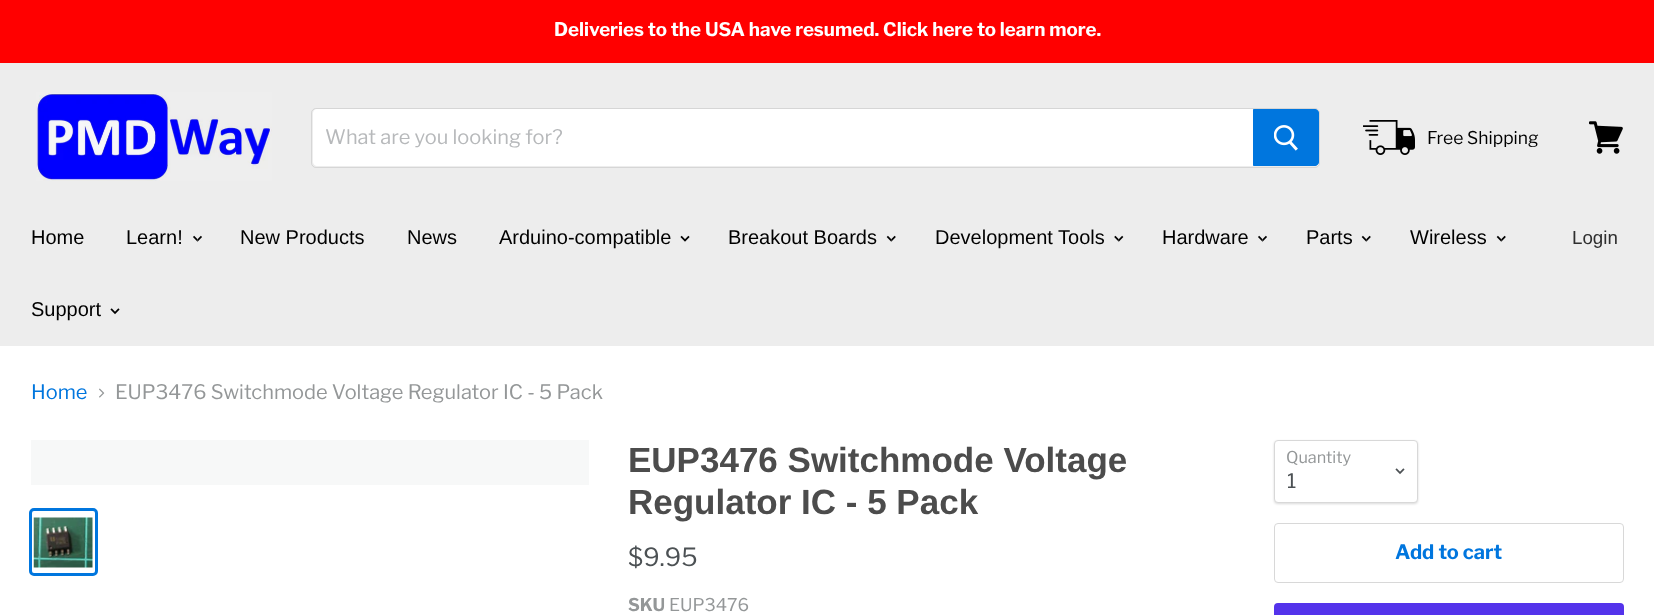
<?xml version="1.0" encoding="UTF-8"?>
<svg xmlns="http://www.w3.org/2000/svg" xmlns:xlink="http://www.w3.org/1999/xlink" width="1654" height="615">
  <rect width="100%" height="100%" fill="#ffffff" />
  <rect width="1654" height="63" fill="#ff0000" />
  <rect y="63" width="1654" height="283" fill="#ededed" />
  <image x="36" y="92" width="236" height="89" xlink:href="image1.png" />
  <rect x="311.5" y="108.5" width="1008" height="59" rx="4.5" fill="none" stroke="#7f7f7f" stroke-opacity="0.2" />
  <path d="M 317 109 h 936 v 57 h -936 c -2 0 -4 -2 -4 -4 v -49 c 0 -2 2 -4 4 -4 z" fill="#ffffff" />
  <path d="M 1253.5 109.5 h 61.5 c 2 0 3.5 1.5 3.5 3.5 v 49 c 0 2 -1.5 3.5 -3.5 3.5 h -61.5 z" fill="#0076de" stroke="#0076de" />
  <image x="1274" y="125" width="24" height="26" xlink:href="image2.png" />
  <image x="1363" y="120" width="52" height="35" xlink:href="image3.png" />
  <image x="1589" y="121" width="34" height="33" xlink:href="image4.png" />
  <image x="193" y="235" width="9" height="7" xlink:href="image5.png" />
  <image x="680" y="235" width="10" height="7" xlink:href="image6.png" />
  <image x="886" y="235" width="10" height="7" xlink:href="image7.png" />
  <image x="1114" y="235" width="10" height="7" xlink:href="image8.png" />
  <image x="1258" y="235" width="9" height="7" xlink:href="image5.png" />
  <image x="1361" y="235" width="10" height="7" xlink:href="image7.png" />
  <image x="1496" y="235" width="10" height="7" xlink:href="image7.png" />
  <image x="110" y="308" width="10" height="7" xlink:href="image9.png" />
  <image x="99" y="388" width="6" height="10" xlink:href="image10.png" />
  <rect x="31" y="440" width="558" height="45" fill="#f7f8f8" />
  <rect x="30.5" y="509.5" width="66" height="65" rx="3.5" fill="none" stroke="#0076de" stroke-width="3" />
  <image x="33" y="517" width="60" height="51" xlink:href="image11.png" />
  <rect x="1274" y="441" width="144" height="63" rx="4" fill="#000000" fill-opacity="0.15" filter="blur(1px)" />
  <rect x="1274.5" y="440.5" width="143" height="62" rx="3.5" fill="#ffffff" stroke="#d8d8d8" />
  <image x="1395" y="468" width="10" height="7" xlink:href="image12.png" />
  <rect x="1274.5" y="523.5" width="349" height="59" rx="3.5" fill="none" stroke="#d8d8d8" />
  <rect x="1274" y="603" width="350" height="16" rx="4" fill="#5433eb" />
  <text x="554" y="36" style="font-family: Libre Franklin; font-size: 18.75px; font-weight: bold; fill: #ffffff">Deliveries to the USA have resumed. Click here to learn more.</text>
  <text x="325" y="144" style="font-family: Libre Franklin; font-size: 20px; fill: #b7b9bb">What are you looking for?</text>
  <text x="1427" y="144" style="font-family: Libre Franklin; font-size: 17.5px; fill: #000000">Free Shipping</text>
  <text x="31" y="244" style="font-family: Arimo; font-size: 20px; fill: #000000">Home</text>
  <text x="126" y="244" style="font-family: Arimo; font-size: 20px; fill: #000000">Learn!</text>
  <text x="240" y="244" style="font-family: Arimo; font-size: 20px; fill: #000000">New Products</text>
  <text x="407" y="244" style="font-family: Arimo; font-size: 20px; fill: #000000">News</text>
  <text x="499" y="244" style="font-family: Arimo; font-size: 20px; fill: #000000">Arduino-compatible</text>
  <text x="728" y="244" style="font-family: Arimo; font-size: 20px; fill: #000000">Breakout Boards</text>
  <text x="935" y="244" style="font-family: Arimo; font-size: 20px; fill: #000000">Development Tools</text>
  <text x="1162" y="244" style="font-family: Arimo; font-size: 20px; fill: #000000">Hardware</text>
  <text x="1306" y="244" style="font-family: Arimo; font-size: 20px; fill: #000000">Parts</text>
  <text x="1410" y="244" style="font-family: Arimo; font-size: 20px; fill: #000000">Wireless</text>
  <text x="31" y="316" style="font-family: Arimo; font-size: 20px; fill: #000000">Support</text>
  <text x="1572" y="244" style="font-family: Arimo; font-size: 18.75px; fill: #2f2f2f">Login</text>
  <text x="31" y="399" style="font-family: Libre Franklin; font-size: 20px; fill: #0076de">Home</text>
  <text x="115" y="399" style="font-family: Libre Franklin; font-size: 20px; fill: #949798">EUP3476 Switchmode Voltage Regulator IC - 5 Pack</text>
  <text x="628" y="472" style="font-family: Arimo; font-size: 35px; font-weight: bold; fill: #4c4c4c">EUP3476 Switchmode Voltage</text>
  <text x="628" y="514" style="font-family: Arimo; font-size: 35px; font-weight: bold; fill: #4c4c4c">Regulator IC - 5 Pack</text>
  <text x="628" y="566" style="font-family: Libre Franklin; font-size: 25px; fill: #4c5154">$9.95</text>
  <text x="628" y="611" style="font-family: Libre Franklin; font-size: 17.5px; font-weight: bold; fill: #949798">SKU</text>
  <text x="669" y="611" style="font-family: Libre Franklin; font-size: 17.5px; fill: #949798">EUP3476</text>
  <text x="1286" y="463" style="font-family: Libre Franklin; font-size: 16.25px; fill: #949798">Quantity</text>
  <text x="1287" y="488" style="font-family: Libre Franklin; font-size: 20px; fill: #4c5154">1</text>
  <text x="1395" y="559" style="font-family: Libre Franklin; font-size: 20px; font-weight: bold; fill: #0076de">Add to cart</text>
</svg>
